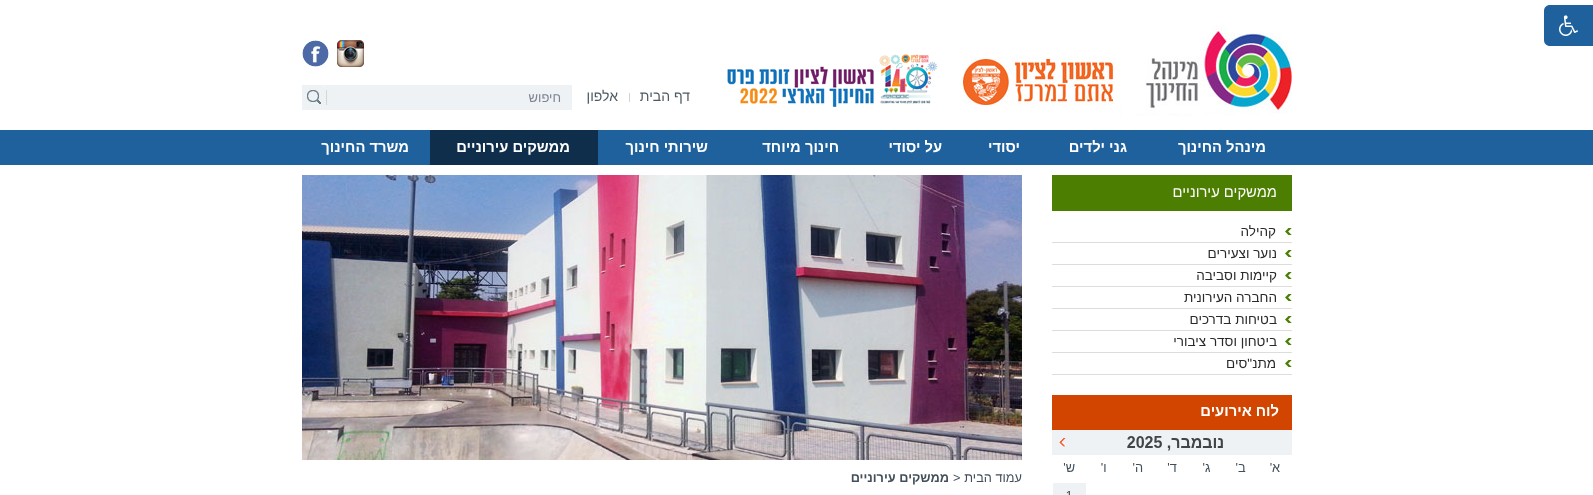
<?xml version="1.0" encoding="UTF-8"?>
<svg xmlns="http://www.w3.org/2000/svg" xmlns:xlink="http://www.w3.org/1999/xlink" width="1593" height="495">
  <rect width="100%" height="100%" fill="#ffffff" />
  <path d="M 1550 5 h 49 v 41 h -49 c -3.5 0 -6 -2.5 -6 -6 v -29 c 0 -3.5 2.5 -6 6 -6 z" fill="#1e619d" />
  <image x="1559" y="15" width="19" height="21" xlink:href="image1.png" />
  <image x="963" y="25" width="329" height="91" xlink:href="image2.png" />
  <image x="727" y="54" width="211" height="53" xlink:href="image3.png" />
  <rect x="629" y="93" width="1" height="9" fill="#cfd4d7" />
  <image x="302" y="85" width="270" height="25" xlink:href="image4.png" />
  <image x="337" y="40" width="27" height="27" xlink:href="image5.png" />
  <image x="302" y="40" width="27" height="27" xlink:href="image6.png" />
  <rect y="130" width="1593" height="35" fill="#1e619d" />
  <rect x="430" y="130" width="168" height="35" fill="#0e2e4b" />
  <rect x="1052" y="175" width="240" height="36" fill="#4b7e01" />
  <rect x="1052" y="242" width="240" height="1" fill="#dddddd" />
  <image x="1285" y="228" width="7" height="7" xlink:href="image7.png" />
  <rect x="1052" y="264" width="240" height="1" fill="#dddddd" />
  <image x="1285" y="250" width="7" height="7" xlink:href="image7.png" />
  <rect x="1052" y="286" width="240" height="1" fill="#dddddd" />
  <image x="1285" y="272" width="7" height="7" xlink:href="image7.png" />
  <rect x="1052" y="308" width="240" height="1" fill="#dddddd" />
  <image x="1285" y="294" width="7" height="7" xlink:href="image7.png" />
  <rect x="1052" y="330" width="240" height="1" fill="#dddddd" />
  <image x="1285" y="316" width="7" height="7" xlink:href="image7.png" />
  <rect x="1052" y="352" width="240" height="1" fill="#dddddd" />
  <image x="1285" y="338" width="7" height="7" xlink:href="image7.png" />
  <rect x="1052" y="374" width="240" height="1" fill="#dddddd" />
  <image x="1285" y="360" width="7" height="7" xlink:href="image7.png" />
  <rect x="1052" y="395" width="240" height="35" fill="#d24500" />
  <image x="1052" y="430" width="240" height="65" xlink:href="image8.png" />
  <image x="302" y="175" width="720" height="285" xlink:href="image9.png" />
  <text x="690" y="101" style="font-family: Liberation Sans; font-size: 14px; direction: rtl; fill: #4d5a63">דף הבית</text>
  <text x="618" y="101" style="font-family: Liberation Sans; font-size: 14px; direction: rtl; fill: #4d5a63">אלפון</text>
  <text x="561" y="102" style="font-family: Liberation Sans; font-size: 13px; direction: rtl; fill: #7d8192">חיפוש</text>
  <text x="1266" y="152" style="font-family: Liberation Sans; font-size: 14.75px; font-weight: bold; direction: rtl; fill: #ffffff">מינהל החינוך</text>
  <text x="1127" y="152" style="font-family: Liberation Sans; font-size: 14.75px; font-weight: bold; direction: rtl; fill: #ffffff">גני ילדים</text>
  <text x="1020" y="152" style="font-family: Liberation Sans; font-size: 14.75px; font-weight: bold; direction: rtl; fill: #ffffff">יסודי</text>
  <text x="942" y="152" style="font-family: Liberation Sans; font-size: 14.75px; font-weight: bold; direction: rtl; fill: #ffffff">על יסודי</text>
  <text x="839" y="152" style="font-family: Liberation Sans; font-size: 14.75px; font-weight: bold; direction: rtl; fill: #ffffff">חינוך מיוחד</text>
  <text x="708" y="152" style="font-family: Liberation Sans; font-size: 14.75px; font-weight: bold; direction: rtl; fill: #ffffff">שירותי חינוך</text>
  <text x="570" y="152" style="font-family: Liberation Sans; font-size: 14.75px; font-weight: bold; direction: rtl; fill: #ffffff">ממשקים עירוניים</text>
  <text x="409" y="152" style="font-family: Liberation Sans; font-size: 14.75px; font-weight: bold; direction: rtl; fill: #ffffff">משרד החינוך</text>
  <text x="1277" y="197" style="font-family: Liberation Sans; font-size: 14.75px; direction: rtl; fill: #ffffff">ממשקים עירוניים</text>
  <text x="1276" y="236" style="font-family: Liberation Sans; font-size: 13.5px; direction: rtl; fill: #2a2a2a">קהילה</text>
  <text x="1277" y="258" style="font-family: Liberation Sans; font-size: 13.5px; direction: rtl; fill: #2a2a2a">נוער וצעירים</text>
  <text x="1277" y="280" style="font-family: Liberation Sans; font-size: 13.5px; direction: rtl; fill: #2a2a2a">קיימות וסביבה</text>
  <text x="1277" y="302" style="font-family: Liberation Sans; font-size: 13.5px; direction: rtl; fill: #2a2a2a">החברה העירונית</text>
  <text x="1277" y="324" style="font-family: Liberation Sans; font-size: 13.5px; direction: rtl; fill: #2a2a2a">בטיחות בדרכים</text>
  <text x="1277" y="346" style="font-family: Liberation Sans; font-size: 13.5px; direction: rtl; fill: #2a2a2a">ביטחון וסדר ציבורי</text>
  <text x="1276" y="368" style="font-family: Liberation Sans; font-size: 13.5px; direction: rtl; fill: #2a2a2a">מתנ"סים</text>
  <text x="1279" y="416" style="font-family: Liberation Sans; font-size: 14.75px; font-weight: bold; direction: rtl; fill: #ffffff">לוח אירועים</text>
  <text x="1022" y="482" style="font-family: Liberation Sans; font-size: 12.75px; direction: rtl; fill: #424f59">עמוד הבית</text>
  <text x="953" y="482" style="font-family: Liberation Sans; font-size: 12.75px; fill: #424f59">&gt;</text>
  <text x="949" y="482" style="font-family: Liberation Sans; font-size: 12.75px; font-weight: bold; direction: rtl; fill: #424f59">ממשקים עירוניים</text>
</svg>
